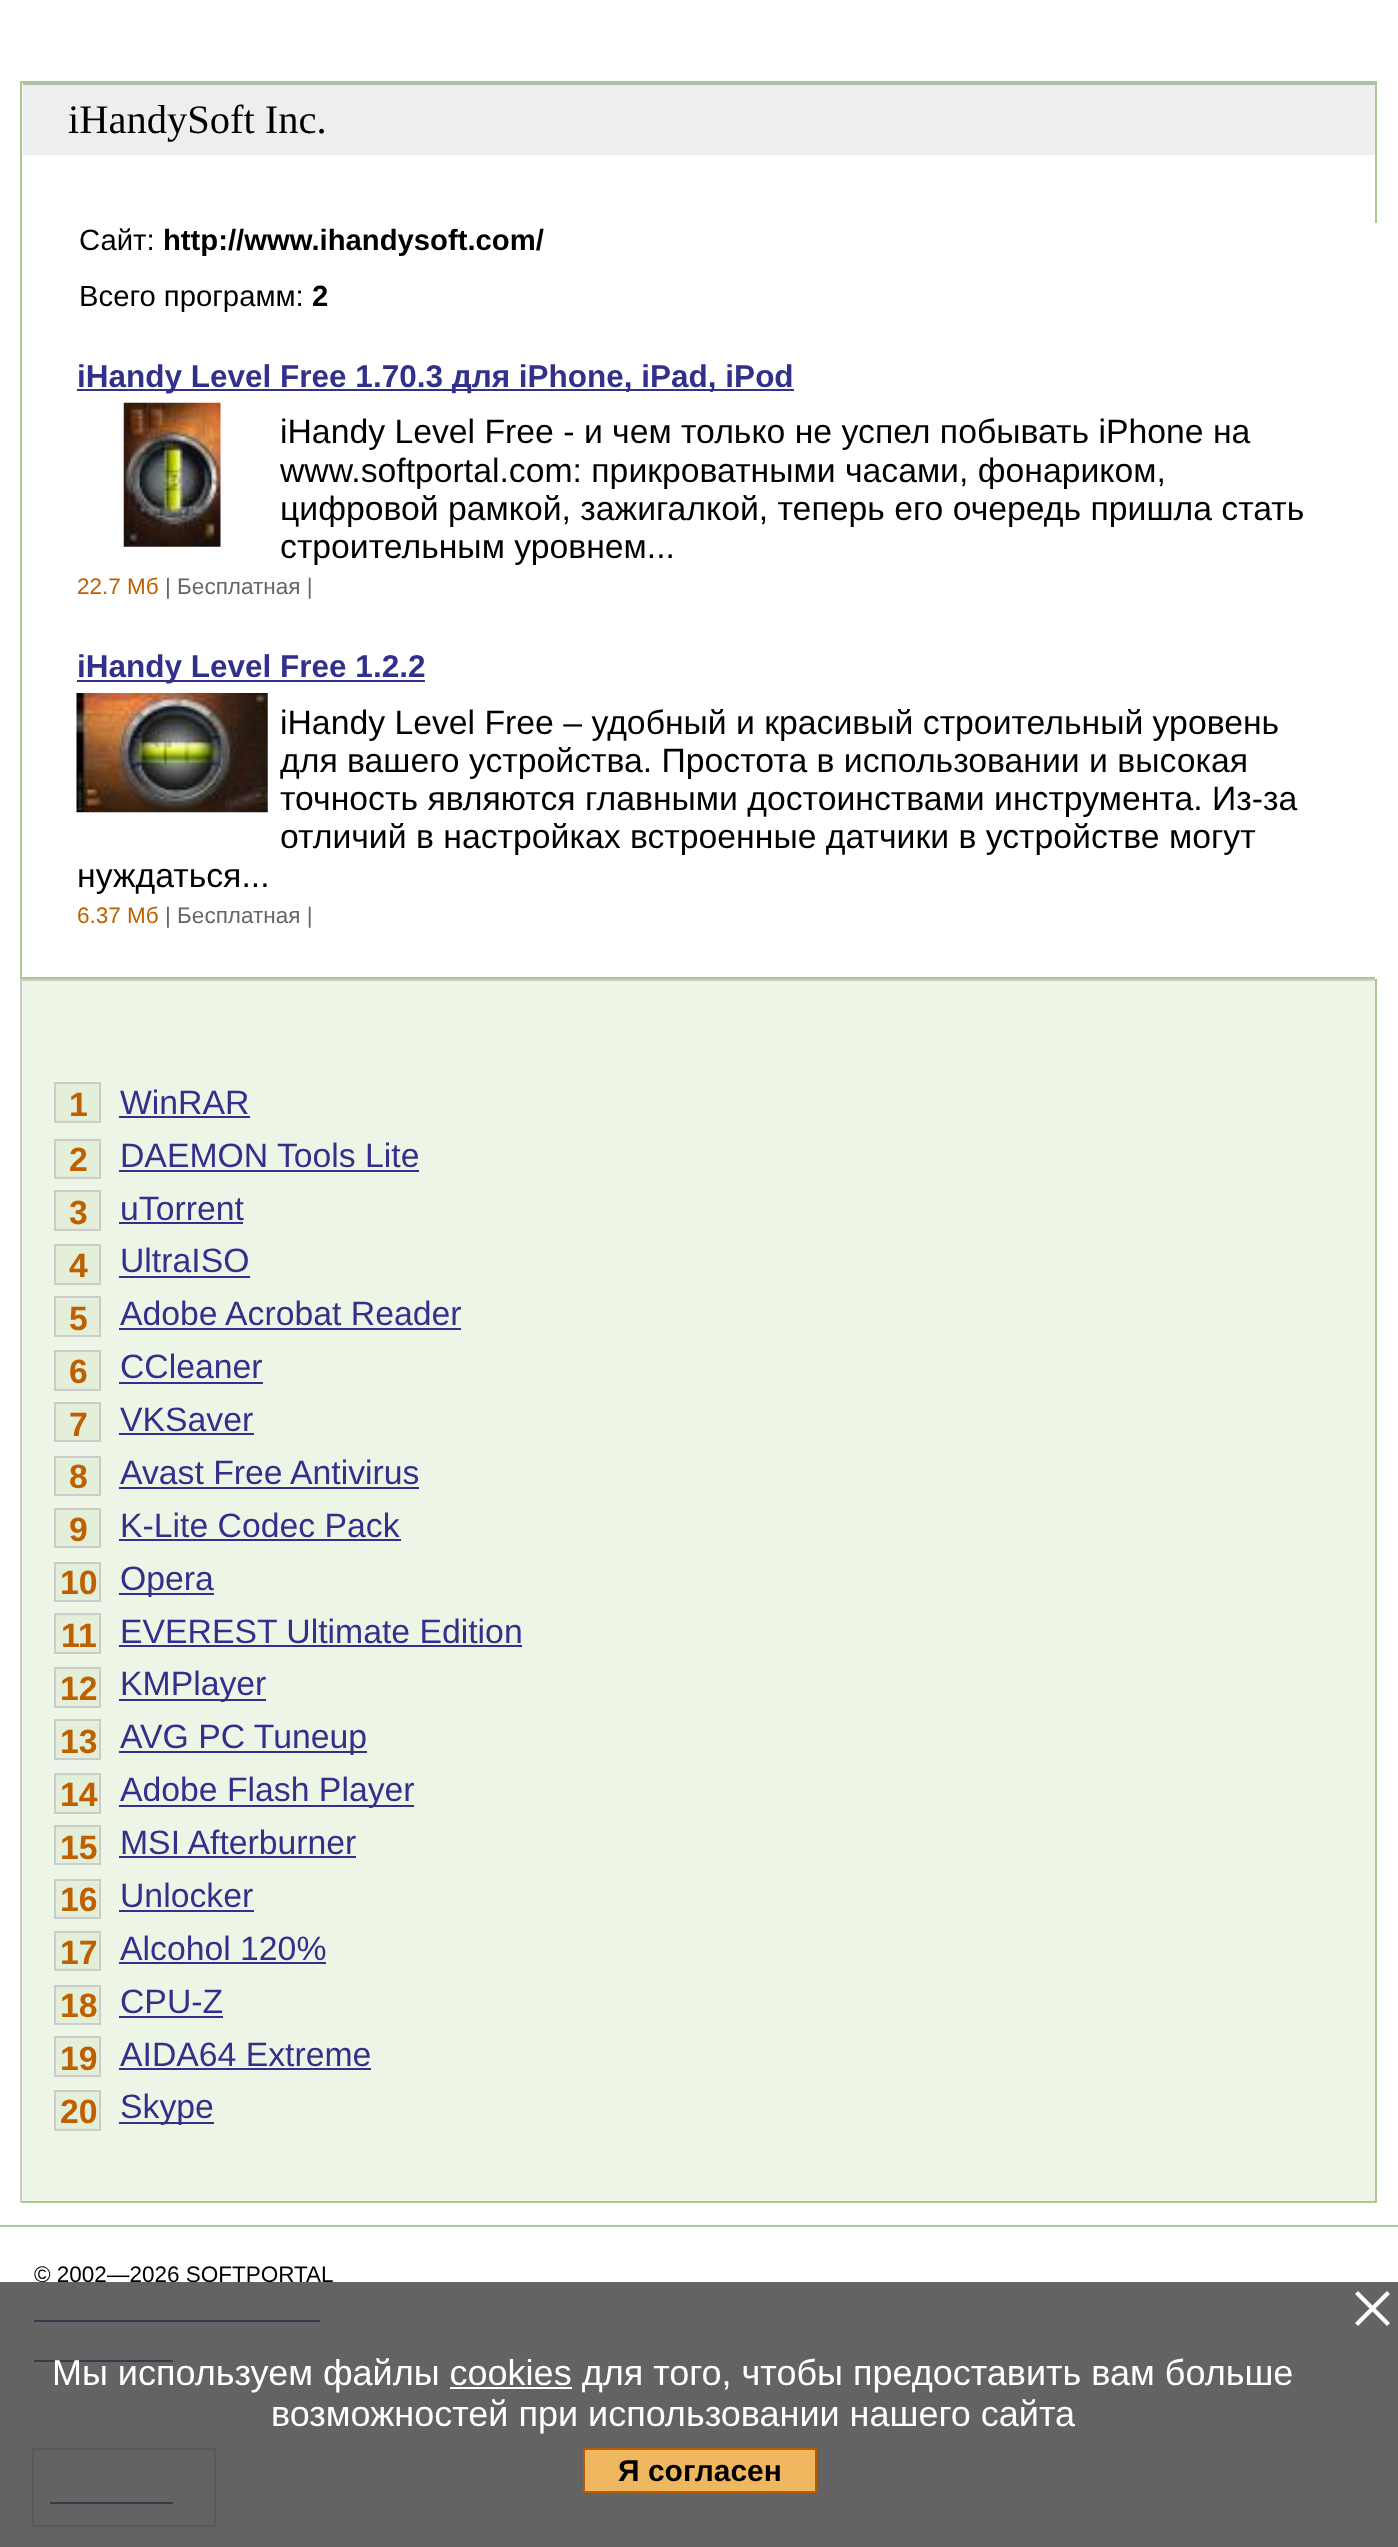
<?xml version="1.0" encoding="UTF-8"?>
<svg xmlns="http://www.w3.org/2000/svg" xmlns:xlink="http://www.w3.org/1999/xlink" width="1398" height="2547">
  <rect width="100%" height="100%" fill="#ffffff" />
  <rect x="20" y="81" width="1357" height="2" fill="#acc791" />
  <rect x="1375" y="81" width="2" height="142" fill="#acc791" />
  <rect x="20" y="81" width="2" height="142" fill="#acc791" />
  <rect x="23" y="85" width="1352" height="70" fill="#eeeeee" />
  <rect x="23" y="83" width="1352" height="2" fill="#b7b7b7" />
  <rect x="20" y="977" width="1355" height="2" fill="#acc791" />
  <rect x="20" y="223" width="2" height="756" fill="#acc791" />
  <rect x="77" y="389" width="717" height="2" fill="#31318c" />
  <image x="123" y="402" width="98" height="145" xlink:href="image1.png" />
  <rect x="77" y="680" width="348" height="2" fill="#31318c" />
  <image x="76" y="693" width="192" height="120" xlink:href="image2.png" />
  <rect x="22" y="981" width="1353" height="1220" fill="#edf5e6" />
  <rect x="20" y="979" width="1357" height="2" fill="#cccccc" />
  <rect x="1375" y="979" width="2" height="1224" fill="#acc791" />
  <rect x="20" y="2201" width="1357" height="2" fill="#acc791" />
  <rect x="20" y="979" width="2" height="1224" fill="#cccccc" />
  <rect x="55" y="1083" width="45" height="39" fill="#e3efd9" stroke="#cccccc" stroke-width="2" />
  <rect x="119" y="1116" width="131" height="2" fill="#31318c" />
  <rect x="55" y="1140" width="45" height="38" fill="#e3efd9" stroke="#cccccc" stroke-width="2" />
  <rect x="119" y="1170" width="300" height="2" fill="#31318c" />
  <rect x="55" y="1191" width="45" height="39" fill="#e3efd9" stroke="#cccccc" stroke-width="2" />
  <rect x="119" y="1222" width="124" height="2" fill="#31318c" />
  <rect x="55" y="1245" width="45" height="39" fill="#e3efd9" stroke="#cccccc" stroke-width="2" />
  <rect x="119" y="1276" width="131" height="2" fill="#31318c" />
  <rect x="55" y="1297" width="45" height="39" fill="#e3efd9" stroke="#cccccc" stroke-width="2" />
  <rect x="119" y="1328" width="342" height="2" fill="#31318c" />
  <rect x="55" y="1351" width="45" height="39" fill="#e3efd9" stroke="#cccccc" stroke-width="2" />
  <rect x="119" y="1382" width="144" height="2" fill="#31318c" />
  <rect x="55" y="1403" width="45" height="38" fill="#e3efd9" stroke="#cccccc" stroke-width="2" />
  <rect x="119" y="1433" width="135" height="2" fill="#31318c" />
  <rect x="55" y="1457" width="45" height="38" fill="#e3efd9" stroke="#cccccc" stroke-width="2" />
  <rect x="119" y="1487" width="300" height="2" fill="#31318c" />
  <rect x="55" y="1509" width="45" height="38" fill="#e3efd9" stroke="#cccccc" stroke-width="2" />
  <rect x="119" y="1539" width="282" height="2" fill="#31318c" />
  <rect x="55" y="1563" width="45" height="38" fill="#e3efd9" stroke="#cccccc" stroke-width="2" />
  <rect x="119" y="1593" width="95" height="2" fill="#31318c" />
  <rect x="55" y="1614" width="45" height="39" fill="#e3efd9" stroke="#cccccc" stroke-width="2" />
  <rect x="119" y="1645" width="403" height="2" fill="#31318c" />
  <rect x="55" y="1668" width="45" height="39" fill="#e3efd9" stroke="#cccccc" stroke-width="2" />
  <rect x="119" y="1699" width="147" height="2" fill="#31318c" />
  <rect x="55" y="1720" width="45" height="39" fill="#e3efd9" stroke="#cccccc" stroke-width="2" />
  <rect x="119" y="1751" width="248" height="2" fill="#31318c" />
  <rect x="55" y="1774" width="45" height="39" fill="#e3efd9" stroke="#cccccc" stroke-width="2" />
  <rect x="119" y="1805" width="295" height="2" fill="#31318c" />
  <rect x="55" y="1826" width="45" height="38" fill="#e3efd9" stroke="#cccccc" stroke-width="2" />
  <rect x="119" y="1856" width="237" height="2" fill="#31318c" />
  <rect x="55" y="1880" width="45" height="38" fill="#e3efd9" stroke="#cccccc" stroke-width="2" />
  <rect x="119" y="1910" width="135" height="2" fill="#31318c" />
  <rect x="55" y="1932" width="45" height="38" fill="#e3efd9" stroke="#cccccc" stroke-width="2" />
  <rect x="119" y="1962" width="207" height="2" fill="#31318c" />
  <rect x="55" y="1986" width="45" height="38" fill="#e3efd9" stroke="#cccccc" stroke-width="2" />
  <rect x="119" y="2016" width="104" height="2" fill="#31318c" />
  <rect x="55" y="2037" width="45" height="39" fill="#e3efd9" stroke="#cccccc" stroke-width="2" />
  <rect x="119" y="2068" width="252" height="2" fill="#31318c" />
  <rect x="55" y="2091" width="45" height="39" fill="#e3efd9" stroke="#cccccc" stroke-width="2" />
  <rect x="119" y="2122" width="95" height="2" fill="#31318c" />
  <rect y="2225" width="1398" height="2" fill="#acc791" />
  <rect x="34" y="2320" width="286" height="2" fill="#31318c" />
  <rect x="34" y="2360" width="139" height="2" fill="#31318c" />
  <rect x="33" y="2449" width="182" height="77" fill="none" stroke="#cdcdcd" stroke-width="2" />
  <rect x="50" y="2502" width="123" height="2" fill="#31318c" />
  <text x="68" y="133" style="font-family: Liberation Serif; font-size: 40.5px; fill: #000000">iHandySoft Inc.</text>
  <text x="79" y="250" style="font-family: Liberation Sans; font-size: 29.25px; fill: #000000">Сайт:</text>
  <text x="163" y="250" style="font-family: Liberation Sans; font-size: 29.25px; font-weight: bold; fill: #000000">http://www.ihandysoft.com/</text>
  <text x="79" y="306" style="font-family: Liberation Sans; font-size: 29.25px; fill: #000000">Всего программ:</text>
  <text x="312" y="306" style="font-family: Liberation Sans; font-size: 29.25px; font-weight: bold; fill: #000000">2</text>
  <text x="77" y="387" style="font-family: Liberation Sans; font-size: 31.5px; font-weight: bold; fill: #31318c">iHandy Level Free 1.70.3 для iPhone, iPad, iPod</text>
  <text x="280" y="443" style="font-family: Liberation Sans; font-size: 33.75px; fill: #000000">iHandy Level Free - и чем только не успел побывать iPhone на</text>
  <text x="280" y="482" style="font-family: Liberation Sans; font-size: 33.75px; fill: #000000">www.softportal.com: прикроватными часами, фонариком,</text>
  <text x="280" y="520" style="font-family: Liberation Sans; font-size: 33.75px; fill: #000000">цифровой рамкой, зажигалкой, теперь его очередь пришла стать</text>
  <text x="280" y="558" style="font-family: Liberation Sans; font-size: 33.75px; fill: #000000">строительным уровнем...</text>
  <text x="77" y="594" style="font-family: Liberation Sans; font-size: 22.5px; fill: #bf6000">22.7 Мб</text>
  <text x="165" y="594" style="font-family: Liberation Sans; font-size: 22.5px; fill: #666666">| Бесплатная |</text>
  <text x="77" y="677" style="font-family: Liberation Sans; font-size: 31.5px; font-weight: bold; fill: #31318c">iHandy Level Free 1.2.2</text>
  <text x="280" y="734" style="font-family: Liberation Sans; font-size: 33.75px; fill: #000000">iHandy Level Free – удобный и красивый строительный уровень</text>
  <text x="280" y="772" style="font-family: Liberation Sans; font-size: 33.75px; fill: #000000">для вашего устройства. Простота в использовании и высокая</text>
  <text x="280" y="810" style="font-family: Liberation Sans; font-size: 33.75px; fill: #000000">точность являются главными достоинствами инструмента. Из-за</text>
  <text x="280" y="848" style="font-family: Liberation Sans; font-size: 33.75px; fill: #000000">отличий в настройках встроенные датчики в устройстве могут</text>
  <text x="77" y="887" style="font-family: Liberation Sans; font-size: 33.75px; fill: #000000">нуждаться...</text>
  <text x="77" y="923" style="font-family: Liberation Sans; font-size: 22.5px; fill: #bf6000">6.37 Мб</text>
  <text x="165" y="923" style="font-family: Liberation Sans; font-size: 22.5px; fill: #666666">| Бесплатная |</text>
  <text x="69" y="1116" style="font-family: Liberation Sans; font-size: 33.75px; font-weight: bold; fill: #bf6000">1</text>
  <text x="120" y="1114" style="font-family: Liberation Sans; font-size: 33.75px; fill: #31318c">WinRAR</text>
  <text x="69" y="1171" style="font-family: Liberation Sans; font-size: 33.75px; font-weight: bold; fill: #bf6000">2</text>
  <text x="120" y="1167" style="font-family: Liberation Sans; font-size: 33.75px; fill: #31318c">DAEMON Tools Lite</text>
  <text x="69" y="1224" style="font-family: Liberation Sans; font-size: 33.75px; font-weight: bold; fill: #bf6000">3</text>
  <text x="120" y="1220" style="font-family: Liberation Sans; font-size: 33.75px; fill: #31318c">uTorrent</text>
  <text x="69" y="1277" style="font-family: Liberation Sans; font-size: 33.75px; font-weight: bold; fill: #bf6000">4</text>
  <text x="120" y="1272" style="font-family: Liberation Sans; font-size: 33.75px; fill: #31318c">UltraISO</text>
  <text x="69" y="1330" style="font-family: Liberation Sans; font-size: 33.75px; font-weight: bold; fill: #bf6000">5</text>
  <text x="120" y="1325" style="font-family: Liberation Sans; font-size: 33.75px; fill: #31318c">Adobe Acrobat Reader</text>
  <text x="69" y="1383" style="font-family: Liberation Sans; font-size: 33.75px; font-weight: bold; fill: #bf6000">6</text>
  <text x="120" y="1378" style="font-family: Liberation Sans; font-size: 33.75px; fill: #31318c">CCleaner</text>
  <text x="69" y="1436" style="font-family: Liberation Sans; font-size: 33.75px; font-weight: bold; fill: #bf6000">7</text>
  <text x="120" y="1431" style="font-family: Liberation Sans; font-size: 33.75px; fill: #31318c">VKSaver</text>
  <text x="69" y="1488" style="font-family: Liberation Sans; font-size: 33.75px; font-weight: bold; fill: #bf6000">8</text>
  <text x="120" y="1484" style="font-family: Liberation Sans; font-size: 33.75px; fill: #31318c">Avast Free Antivirus</text>
  <text x="69" y="1541" style="font-family: Liberation Sans; font-size: 33.75px; font-weight: bold; fill: #bf6000">9</text>
  <text x="120" y="1537" style="font-family: Liberation Sans; font-size: 33.75px; fill: #31318c">K-Lite Codec Pack</text>
  <text x="60" y="1594" style="font-family: Liberation Sans; font-size: 33.75px; font-weight: bold; fill: #bf6000">10</text>
  <text x="120" y="1590" style="font-family: Liberation Sans; font-size: 33.75px; fill: #31318c">Opera</text>
  <text x="61" y="1647" style="font-family: Liberation Sans; font-size: 33.75px; font-weight: bold; fill: #bf6000">11</text>
  <text x="120" y="1643" style="font-family: Liberation Sans; font-size: 33.75px; fill: #31318c">EVEREST Ultimate Edition</text>
  <text x="60" y="1700" style="font-family: Liberation Sans; font-size: 33.75px; font-weight: bold; fill: #bf6000">12</text>
  <text x="120" y="1695" style="font-family: Liberation Sans; font-size: 33.75px; fill: #31318c">KMPlayer</text>
  <text x="60" y="1753" style="font-family: Liberation Sans; font-size: 33.75px; font-weight: bold; fill: #bf6000">13</text>
  <text x="120" y="1748" style="font-family: Liberation Sans; font-size: 33.75px; fill: #31318c">AVG PC Tuneup</text>
  <text x="60" y="1806" style="font-family: Liberation Sans; font-size: 33.75px; font-weight: bold; fill: #bf6000">14</text>
  <text x="120" y="1801" style="font-family: Liberation Sans; font-size: 33.75px; fill: #31318c">Adobe Flash Player</text>
  <text x="60" y="1859" style="font-family: Liberation Sans; font-size: 33.75px; font-weight: bold; fill: #bf6000">15</text>
  <text x="120" y="1854" style="font-family: Liberation Sans; font-size: 33.75px; fill: #31318c">MSI Afterburner</text>
  <text x="60" y="1911" style="font-family: Liberation Sans; font-size: 33.75px; font-weight: bold; fill: #bf6000">16</text>
  <text x="120" y="1907" style="font-family: Liberation Sans; font-size: 33.75px; fill: #31318c">Unlocker</text>
  <text x="60" y="1964" style="font-family: Liberation Sans; font-size: 33.75px; font-weight: bold; fill: #bf6000">17</text>
  <text x="120" y="1960" style="font-family: Liberation Sans; font-size: 33.75px; fill: #31318c">Alcohol 120%</text>
  <text x="60" y="2017" style="font-family: Liberation Sans; font-size: 33.75px; font-weight: bold; fill: #bf6000">18</text>
  <text x="120" y="2013" style="font-family: Liberation Sans; font-size: 33.75px; fill: #31318c">CPU-Z</text>
  <text x="60" y="2070" style="font-family: Liberation Sans; font-size: 33.75px; font-weight: bold; fill: #bf6000">19</text>
  <text x="120" y="2066" style="font-family: Liberation Sans; font-size: 33.75px; fill: #31318c">AIDA64 Extreme</text>
  <text x="60" y="2123" style="font-family: Liberation Sans; font-size: 33.75px; font-weight: bold; fill: #bf6000">20</text>
  <text x="120" y="2118" style="font-family: Liberation Sans; font-size: 33.75px; fill: #31318c">Skype</text>
  <text x="34" y="2282" style="font-family: Liberation Sans; font-size: 22.5px; fill: #000000">© 2002—2026 SOFTPORTAL</text>
  <rect y="2282" width="1398" height="265" fill="#3c3c3c" fill-opacity="0.8" />
  <path d="M 1387 2291 l 3 3 l -32 32 l -3 -3 z" fill="#ffffff" />
  <path d="M 1355 2294 l 3 -3 l 32 32 l -3 3 z" fill="#ffffff" />
  <text x="52" y="2385" style="font-family: Liberation Sans; font-size: 36px; fill: #ffffff">Мы используем файлы cookies для того, чтобы предоставить вам больше</text>
  <rect x="450" y="2387" width="122" height="2" fill="#ffffff" />
  <text x="271" y="2426" style="font-family: Liberation Sans; font-size: 36px; fill: #ffffff">возможностей при использовании нашего сайта</text>
  <rect x="584" y="2449" width="232" height="43" fill="#efb860" stroke="#b95d00" stroke-width="2" />
  <text x="618" y="2481" style="font-family: Liberation Sans; font-size: 30px; font-weight: bold; fill: #000000">Я согласен</text>
</svg>
